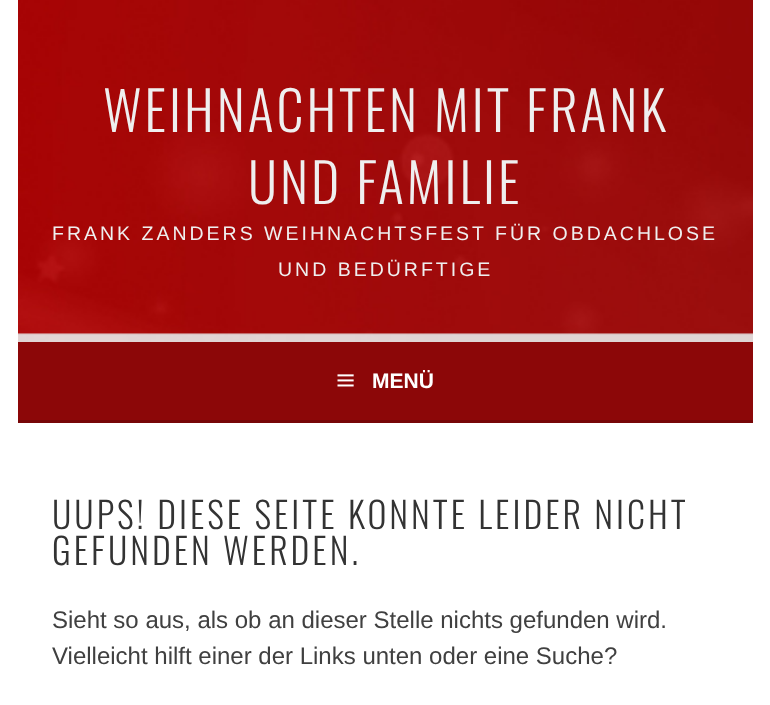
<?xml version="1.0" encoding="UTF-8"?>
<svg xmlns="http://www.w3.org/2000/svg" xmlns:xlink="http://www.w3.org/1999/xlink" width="770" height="705">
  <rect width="100%" height="100%" fill="#ffffff" />
  <image x="18" y="0" width="735" height="342" xlink:href="image1.png" />
  <rect x="18" y="342" width="735" height="78" fill="#8c0708" />
  <rect x="18" y="420" width="735" height="3" fill="#770607" />
  <image x="337" y="374" width="17" height="13" xlink:href="image2.png" />
  <text x="103" y="132" style="font-family: Oswald; font-size: 54px; font-weight: 300; letter-spacing: 3px; fill: #efefef">WEIHNACHTEN MIT FRANK</text>
  <text x="248" y="204" style="font-family: Oswald; font-size: 54px; font-weight: 300; letter-spacing: 3px; fill: #efefef">UND FAMILIE</text>
  <text x="52" y="240" style="font-family: Liberation Sans; font-size: 19.5px; letter-spacing: 3px; fill: #efefef">FRANK ZANDERS WEIHNACHTSFEST FÜR OBDACHLOSE</text>
  <text x="278" y="276" style="font-family: Liberation Sans; font-size: 19.5px; letter-spacing: 3px; fill: #efefef">UND BEDÜRFTIGE</text>
  <text x="372" y="388" style="font-family: Liberation Sans; font-size: 21px; font-weight: bold; fill: #ffffff">MENÜ</text>
  <text x="52" y="529" style="font-family: Oswald; font-size: 36px; font-weight: 300; letter-spacing: 3px; fill: #333333">UUPS! DIESE SEITE KONNTE LEIDER NICHT</text>
  <text x="52" y="565" style="font-family: Oswald; font-size: 36px; font-weight: 300; letter-spacing: 3px; fill: #333333">GEFUNDEN WERDEN.</text>
  <text x="52" y="628" style="font-family: Liberation Sans; font-size: 24px; fill: #404040">Sieht so aus, als ob an dieser Stelle nichts gefunden wird.</text>
  <text x="52" y="664" style="font-family: Liberation Sans; font-size: 24px; fill: #404040">Vielleicht hilft einer der Links unten oder eine Suche?</text>
</svg>
